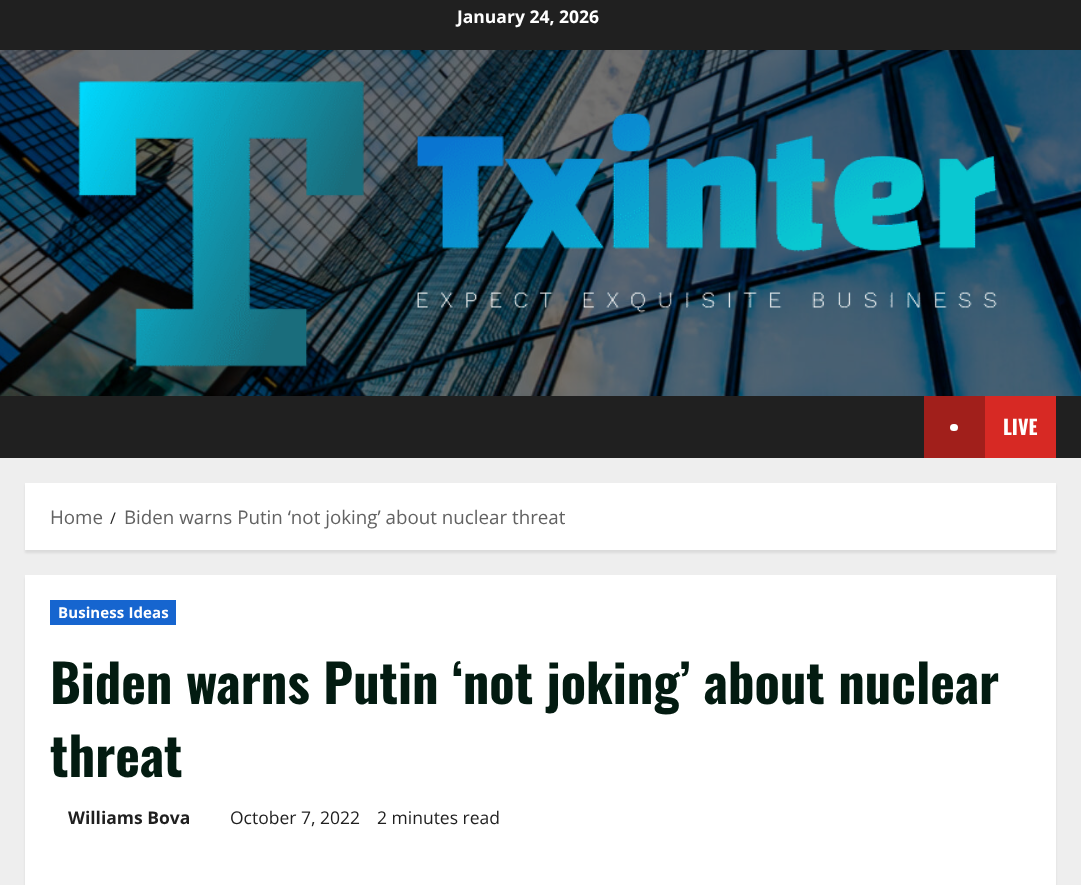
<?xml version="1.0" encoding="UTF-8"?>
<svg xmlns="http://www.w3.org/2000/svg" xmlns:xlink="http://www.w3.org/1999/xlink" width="1081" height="885">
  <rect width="100%" height="100%" fill="#eeeeee" />
  <rect width="1081" height="50" fill="#202020" />
  <image x="0" y="50" width="1081" height="346" xlink:href="image1.png" />
  <image x="78" y="81" width="919" height="286" xlink:href="image2.png" />
  <rect y="396" width="1081" height="62" fill="#202020" />
  <rect x="985" y="396" width="71" height="62" fill="#d72924" />
  <rect x="924" y="396" width="61" height="62" fill="#a11f1b" />
  <rect x="950" y="424" width="8" height="7" rx="3.5" fill="#ffffff" />
  <rect x="25" y="485" width="1031" height="68" fill="#000000" fill-opacity="0.08" filter="blur(1px)" />
  <rect x="25" y="483" width="1031" height="67" fill="#ffffff" />
  <rect x="25" y="578" width="1031" height="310" fill="#000000" fill-opacity="0.08" filter="blur(1px)" />
  <rect x="25" y="575" width="1031" height="310" fill="#ffffff" />
  <rect x="50" y="600" width="126" height="25" fill="#1665cf" />
  <text x="457" y="23" style="font-family: Open Sans; font-size: 17.5px; font-weight: bold; fill: #ffffff">January 24, 2026</text>
  <text x="1003" y="435" style="font-family: Oswald; font-size: 20px; font-weight: bold; fill: #ffffff">LIVE</text>
  <text x="50" y="524" style="font-family: Open Sans; font-size: 18.75px; fill: #626262">Home</text>
  <text x="110" y="524" style="font-family: Open Sans; font-size: 16px; fill: #1f1f1f">/</text>
  <text x="124" y="524" style="font-family: Open Sans; font-size: 18.75px; fill: #626262">Biden warns Putin ‘not joking’ about nuclear threat</text>
  <text x="58" y="618" style="font-family: Open Sans; font-size: 15px; font-weight: bold; letter-spacing: 0.1px; fill: #ffffff">Business Ideas</text>
  <text x="50" y="704" style="font-family: Oswald; font-size: 52.5px; font-weight: bold; fill: #031b11">Biden warns Putin ‘not joking’ about nuclear</text>
  <text x="50" y="777" style="font-family: Oswald; font-size: 52.5px; font-weight: bold; fill: #031b11">threat</text>
  <text x="68" y="824" style="font-family: Open Sans; font-size: 17.5px; font-weight: bold; fill: #1f1f1f">Williams Bova</text>
  <text x="230" y="824" style="font-family: Open Sans; font-size: 17.5px; fill: #1f1f1f">October 7, 2022</text>
  <text x="377" y="824" style="font-family: Open Sans; font-size: 17.5px; fill: #1f1f1f">2 minutes read</text>
</svg>
